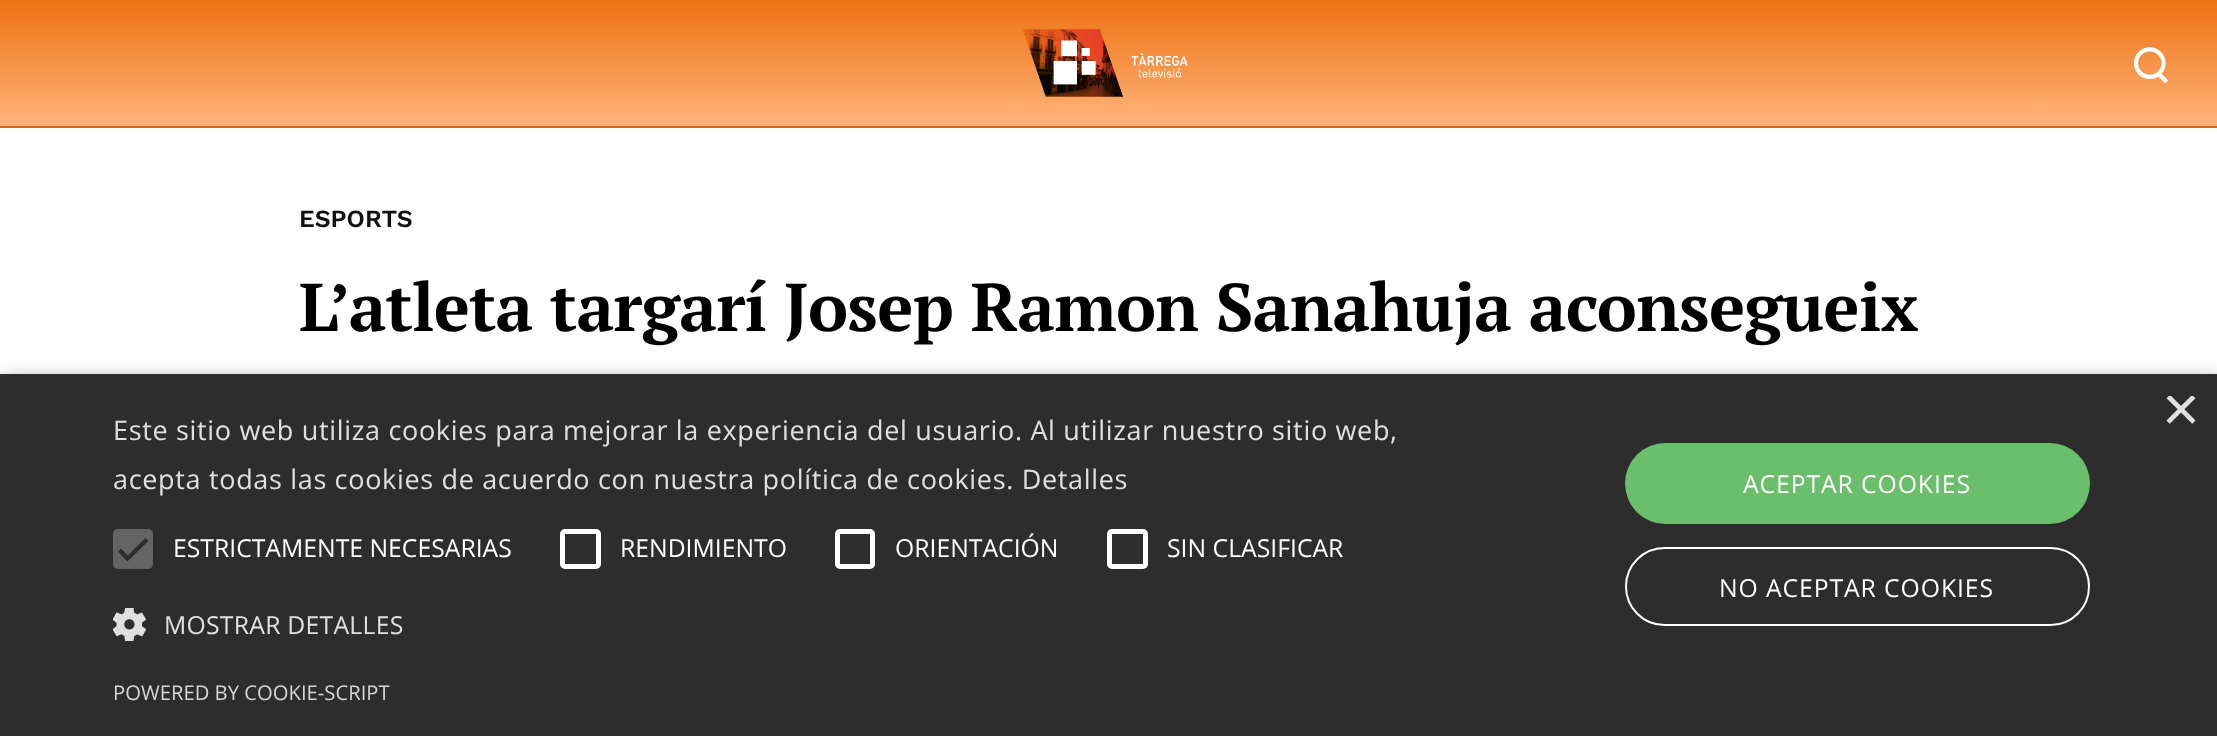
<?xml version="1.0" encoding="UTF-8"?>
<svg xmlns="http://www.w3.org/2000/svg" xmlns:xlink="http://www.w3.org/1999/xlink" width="2217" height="736">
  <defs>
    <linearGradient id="g1" gradientUnits="userSpaceOnUse" x1="1109" y1="0" x2="1109" y2="126"><stop offset="0" stop-color="#ed7211" /><stop offset="0.95" stop-color="#ffb178" /></linearGradient>
    <clipPath id="clip1"><rect x="2162" y="396" width="34" height="34" /></clipPath>
  </defs>
  <rect width="100%" height="100%" fill="#ffffff" />
  <rect width="2217" height="126" fill="url(#g1)" />
  <rect y="126" width="2217" height="2" fill="#da6910" />
  <image x="1022" y="29" width="166" height="68" xlink:href="image1.png" />
  <image x="2133" y="47" width="35" height="36" xlink:href="image2.png" />
  <rect x="2" y="378" width="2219" height="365" fill="#000000" fill-opacity="0.35" filter="blur(9px)" />
  <rect y="374" width="2217" height="362" fill="#2d2d2d" />
  <rect x="113" y="529" width="40" height="40" rx="5" fill="#646464" />
  <path d="M 119.5 550 l 8 8.5 l 19.5 -19" fill="none" stroke="#2d2d2d" stroke-width="4.1" />
  <rect x="562.5" y="531.5" width="36" height="35" rx="2.5" fill="none" stroke="#ffffff" stroke-width="5" />
  <rect x="837.5" y="531.5" width="35" height="35" rx="2.5" fill="none" stroke="#ffffff" stroke-width="5" />
  <rect x="1109.5" y="531.5" width="36" height="35" rx="2.5" fill="none" stroke="#ffffff" stroke-width="5" />
  <image x="113" y="608" width="33" height="33" xlink:href="image3.png" />
  <rect x="1625" y="443" width="465" height="81" rx="40.5" fill="#6bbe6b" />
  <rect x="1626" y="548" width="463" height="77" rx="38.5" fill="none" stroke="#ffffff" stroke-width="2" />
  <text x="299" y="227" style="font-family: Work Sans; font-size: 24.75px; font-weight: 600; fill: #111111">ESPORTS</text>
  <text x="299" y="331" style="font-family: PT Serif; font-size: 67.5px; font-weight: bold; letter-spacing: -0.65px; fill: #000000">L’atleta targarí Josep Ramon Sanahuja aconsegueix</text>
  <g clip-path="url(#clip1)">
    <text x="2162" y="431" style="font-family: Liberation Sans; font-size: 65px; fill: #e0e0e0">×</text>
  </g>
  <text x="113" y="440" style="font-family: Open Sans; font-size: 27px; letter-spacing: 0.67px; fill: #e0e0e0">Este sitio web utiliza cookies para mejorar la experiencia del usuario. Al utilizar nuestro sitio web,</text>
  <text x="113" y="489" style="font-family: Open Sans; font-size: 27px; letter-spacing: 0.67px; fill: #e0e0e0">acepta todas las cookies de acuerdo con nuestra política de cookies. Detalles</text>
  <text x="173" y="557" style="font-family: Open Sans; font-size: 24.75px; fill: #ffffff">ESTRICTAMENTE NECESARIAS</text>
  <text x="620" y="557" style="font-family: Open Sans; font-size: 24.75px; fill: #ffffff">RENDIMIENTO</text>
  <text x="895" y="557" style="font-family: Open Sans; font-size: 24.75px; fill: #ffffff">ORIENTACIÓN</text>
  <text x="1167" y="557" style="font-family: Open Sans; font-size: 24.75px; fill: #ffffff">SIN CLASIFICAR</text>
  <text x="164" y="634" style="font-family: Open Sans; font-size: 24.75px; letter-spacing: 0.25px; fill: #e0e0e0">MOSTRAR DETALLES</text>
  <text x="1743" y="493" style="font-family: Open Sans; font-size: 24.75px; letter-spacing: 0.9px; fill: #ffffff">ACEPTAR COOKIES</text>
  <text x="1719" y="597" style="font-family: Open Sans; font-size: 24.75px; letter-spacing: 0.9px; fill: #ffffff">NO ACEPTAR COOKIES</text>
  <text x="113" y="700" style="font-family: Open Sans; font-size: 20.25px; fill: #d5d5d5">POWERED BY COOKIE-SCRIPT</text>
</svg>
